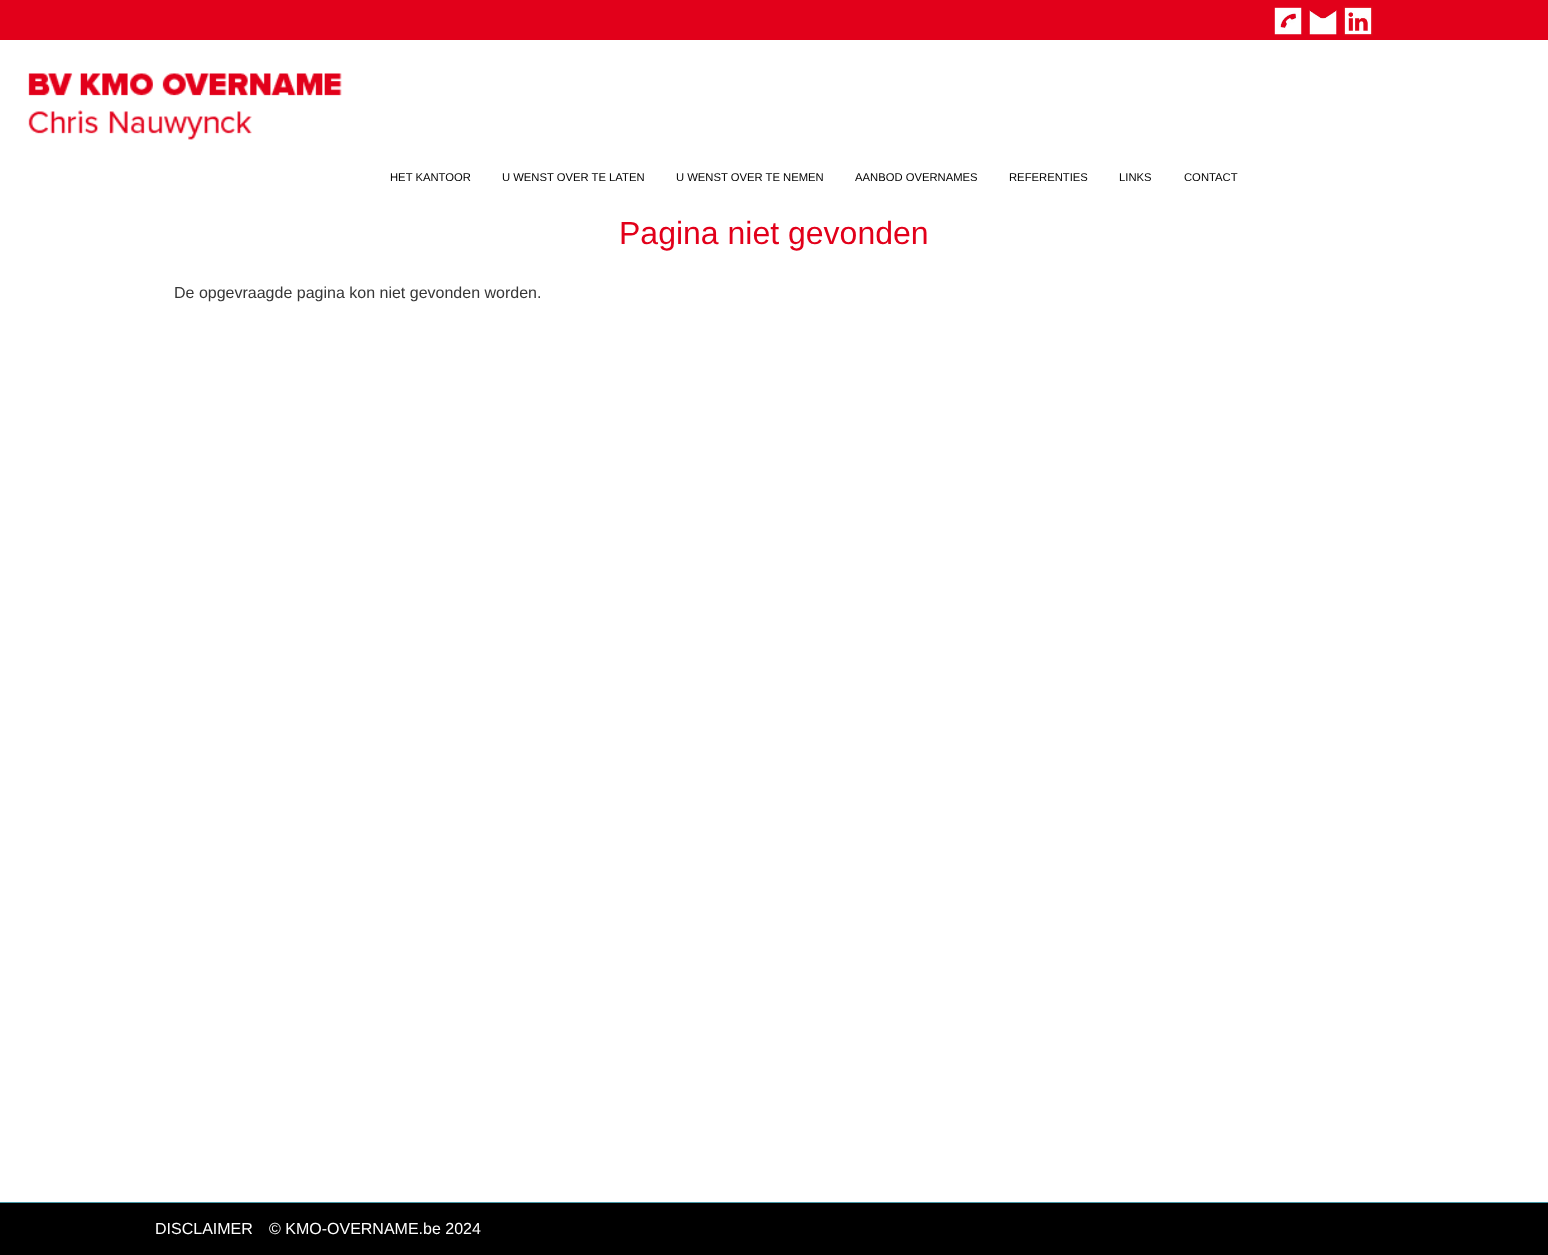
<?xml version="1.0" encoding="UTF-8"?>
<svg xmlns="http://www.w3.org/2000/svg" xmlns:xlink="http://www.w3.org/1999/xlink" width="1548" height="1255">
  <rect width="100%" height="100%" fill="#ffffff" />
  <rect width="1548" height="40" fill="#e2001a" />
  <image x="1274" y="7" width="28" height="28" xlink:href="image1.png" />
  <image x="1309" y="10" width="28" height="25" xlink:href="image2.png" />
  <image x="1343" y="6" width="30" height="30" xlink:href="image3.png" />
  <image x="28" y="73" width="314" height="67" xlink:href="image4.png" />
  <rect y="1203" width="1548" height="52" fill="#000000" />
  <rect y="1202" width="1548" height="1" fill="#4598a6" />
  <text x="390" y="181" style="font-family: Liberation Sans; font-size: 11.25px; fill: #000000">HET KANTOOR</text>
  <text x="502" y="181" style="font-family: Liberation Sans; font-size: 11.25px; fill: #000000">U WENST OVER TE LATEN</text>
  <text x="676" y="181" style="font-family: Liberation Sans; font-size: 11.25px; fill: #000000">U WENST OVER TE NEMEN</text>
  <text x="855" y="181" style="font-family: Liberation Sans; font-size: 11.25px; fill: #000000">AANBOD OVERNAMES</text>
  <text x="1009" y="181" style="font-family: Liberation Sans; font-size: 11.25px; fill: #000000">REFERENTIES</text>
  <text x="1119" y="181" style="font-family: Liberation Sans; font-size: 11.25px; fill: #000000">LINKS</text>
  <text x="1184" y="181" style="font-family: Liberation Sans; font-size: 11.25px; fill: #000000">CONTACT</text>
  <text x="619" y="244" style="font-family: Liberation Sans; font-size: 32px; fill: #e2001a">Pagina niet gevonden</text>
  <text x="174" y="298" style="font-family: Liberation Sans; font-size: 16px; fill: #363636">De opgevraagde pagina kon niet gevonden worden.</text>
  <text x="155" y="1234" style="font-family: Liberation Sans; font-size: 16px; fill: #ffffff">DISCLAIMER</text>
  <text x="269" y="1234" style="font-family: Liberation Sans; font-size: 16px; fill: #ffffff">© KMO-OVERNAME.be 2024</text>
</svg>
